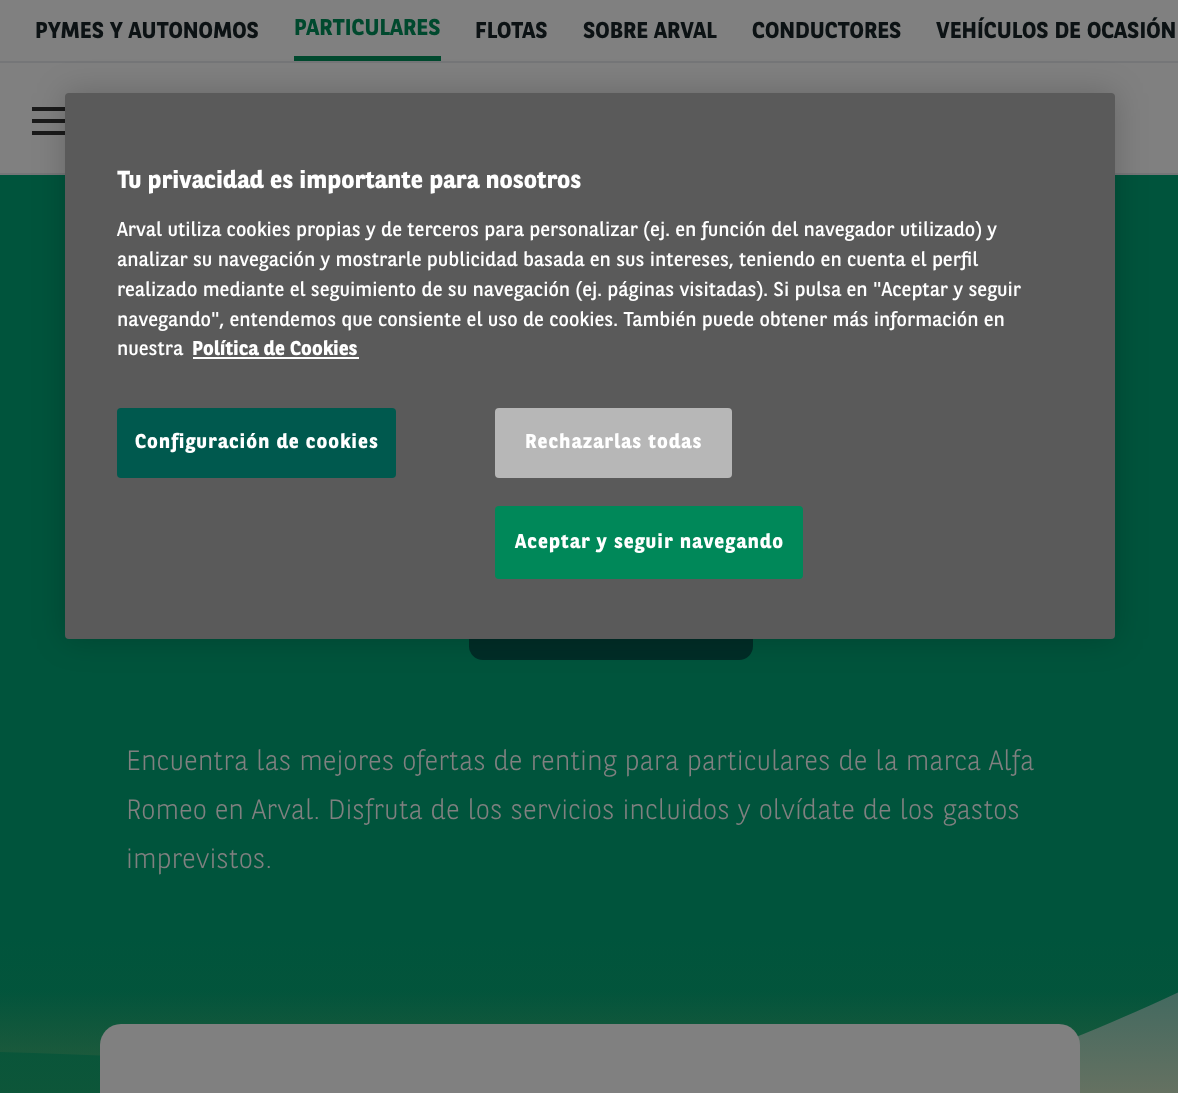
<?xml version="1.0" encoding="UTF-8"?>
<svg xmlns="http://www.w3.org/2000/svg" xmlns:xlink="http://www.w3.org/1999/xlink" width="1178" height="1093">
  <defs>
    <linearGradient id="g1" gradientUnits="userSpaceOnUse" x1="588" y1="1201" x2="588" y2="938"><stop offset="0" stop-color="#165737" /><stop offset="1" stop-color="#00543c" /></linearGradient>
    <linearGradient id="g2" gradientUnits="userSpaceOnUse" x1="583" y1="991" x2="583" y2="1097"><stop offset="0" stop-color="#00543c" stop-opacity="0.46" /><stop offset="1" stop-color="#4e6540" stop-opacity="0.46" /></linearGradient>
  </defs>
  <rect width="100%" height="100%" fill="#7b7c7e" />
  <rect width="1178" height="173" fill="#808080" />
  <rect y="173" width="1178" height="2" fill="#757678" />
  <rect y="61" width="1178" height="2" fill="#757678" />
  <rect x="294" y="56" width="147" height="5" fill="#00492e" />
  <rect x="32" y="107" width="35" height="4" fill="#1a1a1a" />
  <rect x="32" y="119" width="35" height="4" fill="#1a1a1a" />
  <rect x="32" y="131" width="35" height="4" fill="#1a1a1a" />
  <rect y="175" width="1178" height="763" fill="#00543c" />
  <rect x="469" y="590" width="284" height="70" rx="14" fill="#002d27" />
  <path d="M 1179 991 v -53 h -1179 v 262 c 189 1 387 -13 594 -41 c 194 -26 353 -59 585 -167" fill="url(#g1)" />
  <path d="M 1098 938 h -1098 v 114 c 217 6 400 20 549 40 c 122 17 223 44 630 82 v -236 z" fill="url(#g2)" />
  <rect x="100" y="1024" width="980" height="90" rx="21" fill="#808080" />
  <rect x="65" y="93" width="1050" height="546" rx="4" fill="#000000" fill-opacity="0.2" filter="blur(16px)" />
  <rect x="65" y="93" width="1050" height="546" rx="4" fill="#5a5a5a" />
  <rect x="193" y="357" width="166" height="2" fill="#ffffff" />
  <rect x="117" y="408" width="279" height="70" rx="4" fill="#00594e" />
  <rect x="495" y="408" width="237" height="70" rx="4" fill="#b7b7b7" />
  <rect x="496" y="507" width="306" height="71" rx="3" fill="#008859" stroke="#008859" stroke-width="2" />
  <text x="35" y="38" style="font-family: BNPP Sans; font-size: 22.75px; font-weight: bold; fill: #0c1214">PYMES Y AUTONOMOS</text>
  <text x="294" y="35" style="font-family: BNPP Sans; font-size: 22.75px; font-weight: bold; fill: #00492e">PARTICULARES</text>
  <text x="475" y="38" style="font-family: BNPP Sans; font-size: 22.75px; font-weight: bold; fill: #0c1214">FLOTAS</text>
  <text x="583" y="38" style="font-family: BNPP Sans; font-size: 22.75px; font-weight: bold; fill: #0c1214">SOBRE ARVAL</text>
  <text x="752" y="38" style="font-family: BNPP Sans; font-size: 22.75px; font-weight: bold; fill: #0c1214">CONDUCTORES</text>
  <text x="936" y="38" style="font-family: BNPP Sans; font-size: 22.75px; font-weight: bold; fill: #0c1214">VEHÍCULOS DE OCASIÓN</text>
  <text x="126" y="770" style="font-family: BNPP Sans; font-size: 28px; font-weight: 300; fill: #808080">Encuentra las mejores ofertas de renting para particulares de la marca Alfa</text>
  <text x="126" y="819" style="font-family: BNPP Sans; font-size: 28px; font-weight: 300; fill: #808080">Romeo en Arval. Disfruta de los servicios incluidos y olvídate de los gastos</text>
  <text x="126" y="868" style="font-family: BNPP Sans; font-size: 28px; font-weight: 300; fill: #808080">imprevistos.</text>
  <text x="117" y="188" style="font-family: BNPP Sans; font-size: 24.5px; font-weight: bold; fill: #ffffff">Tu privacidad es importante para nosotros</text>
  <text x="117" y="236" style="font-family: BNPP Sans; font-size: 19.9px; fill: #ffffff">Arval utiliza cookies propias y de terceros para personalizar (ej. en función del navegador utilizado) y</text>
  <text x="117" y="266" style="font-family: BNPP Sans; font-size: 19.9px; fill: #ffffff">analizar su navegación y mostrarle publicidad basada en sus intereses, teniendo en cuenta el perfil</text>
  <text x="117" y="296" style="font-family: BNPP Sans; font-size: 19.9px; fill: #ffffff">realizado mediante el seguimiento de su navegación (ej. páginas visitadas). Si pulsa en "Aceptar y seguir</text>
  <text x="117" y="326" style="font-family: BNPP Sans; font-size: 19.9px; fill: #ffffff">navegando", entendemos que consiente el uso de cookies. También puede obtener más información en</text>
  <text x="117" y="355" style="font-family: BNPP Sans; font-size: 19.9px; fill: #ffffff">nuestra</text>
  <text x="192" y="355" style="font-family: BNPP Sans; font-size: 19.9px; font-weight: bold; fill: #ffffff">Política de Cookies</text>
  <text x="135" y="448" style="font-family: BNPP Sans; font-size: 19.9px; font-weight: bold; letter-spacing: 1px; fill: #ffffff">Configuración de cookies</text>
  <text x="525" y="448" style="font-family: BNPP Sans; font-size: 19.9px; font-weight: bold; letter-spacing: 1px; fill: #ffffff">Rechazarlas todas</text>
  <text x="515" y="548" style="font-family: BNPP Sans; font-size: 19.9px; font-weight: bold; letter-spacing: 1px; fill: #ffffff">Aceptar y seguir navegando</text>
</svg>
